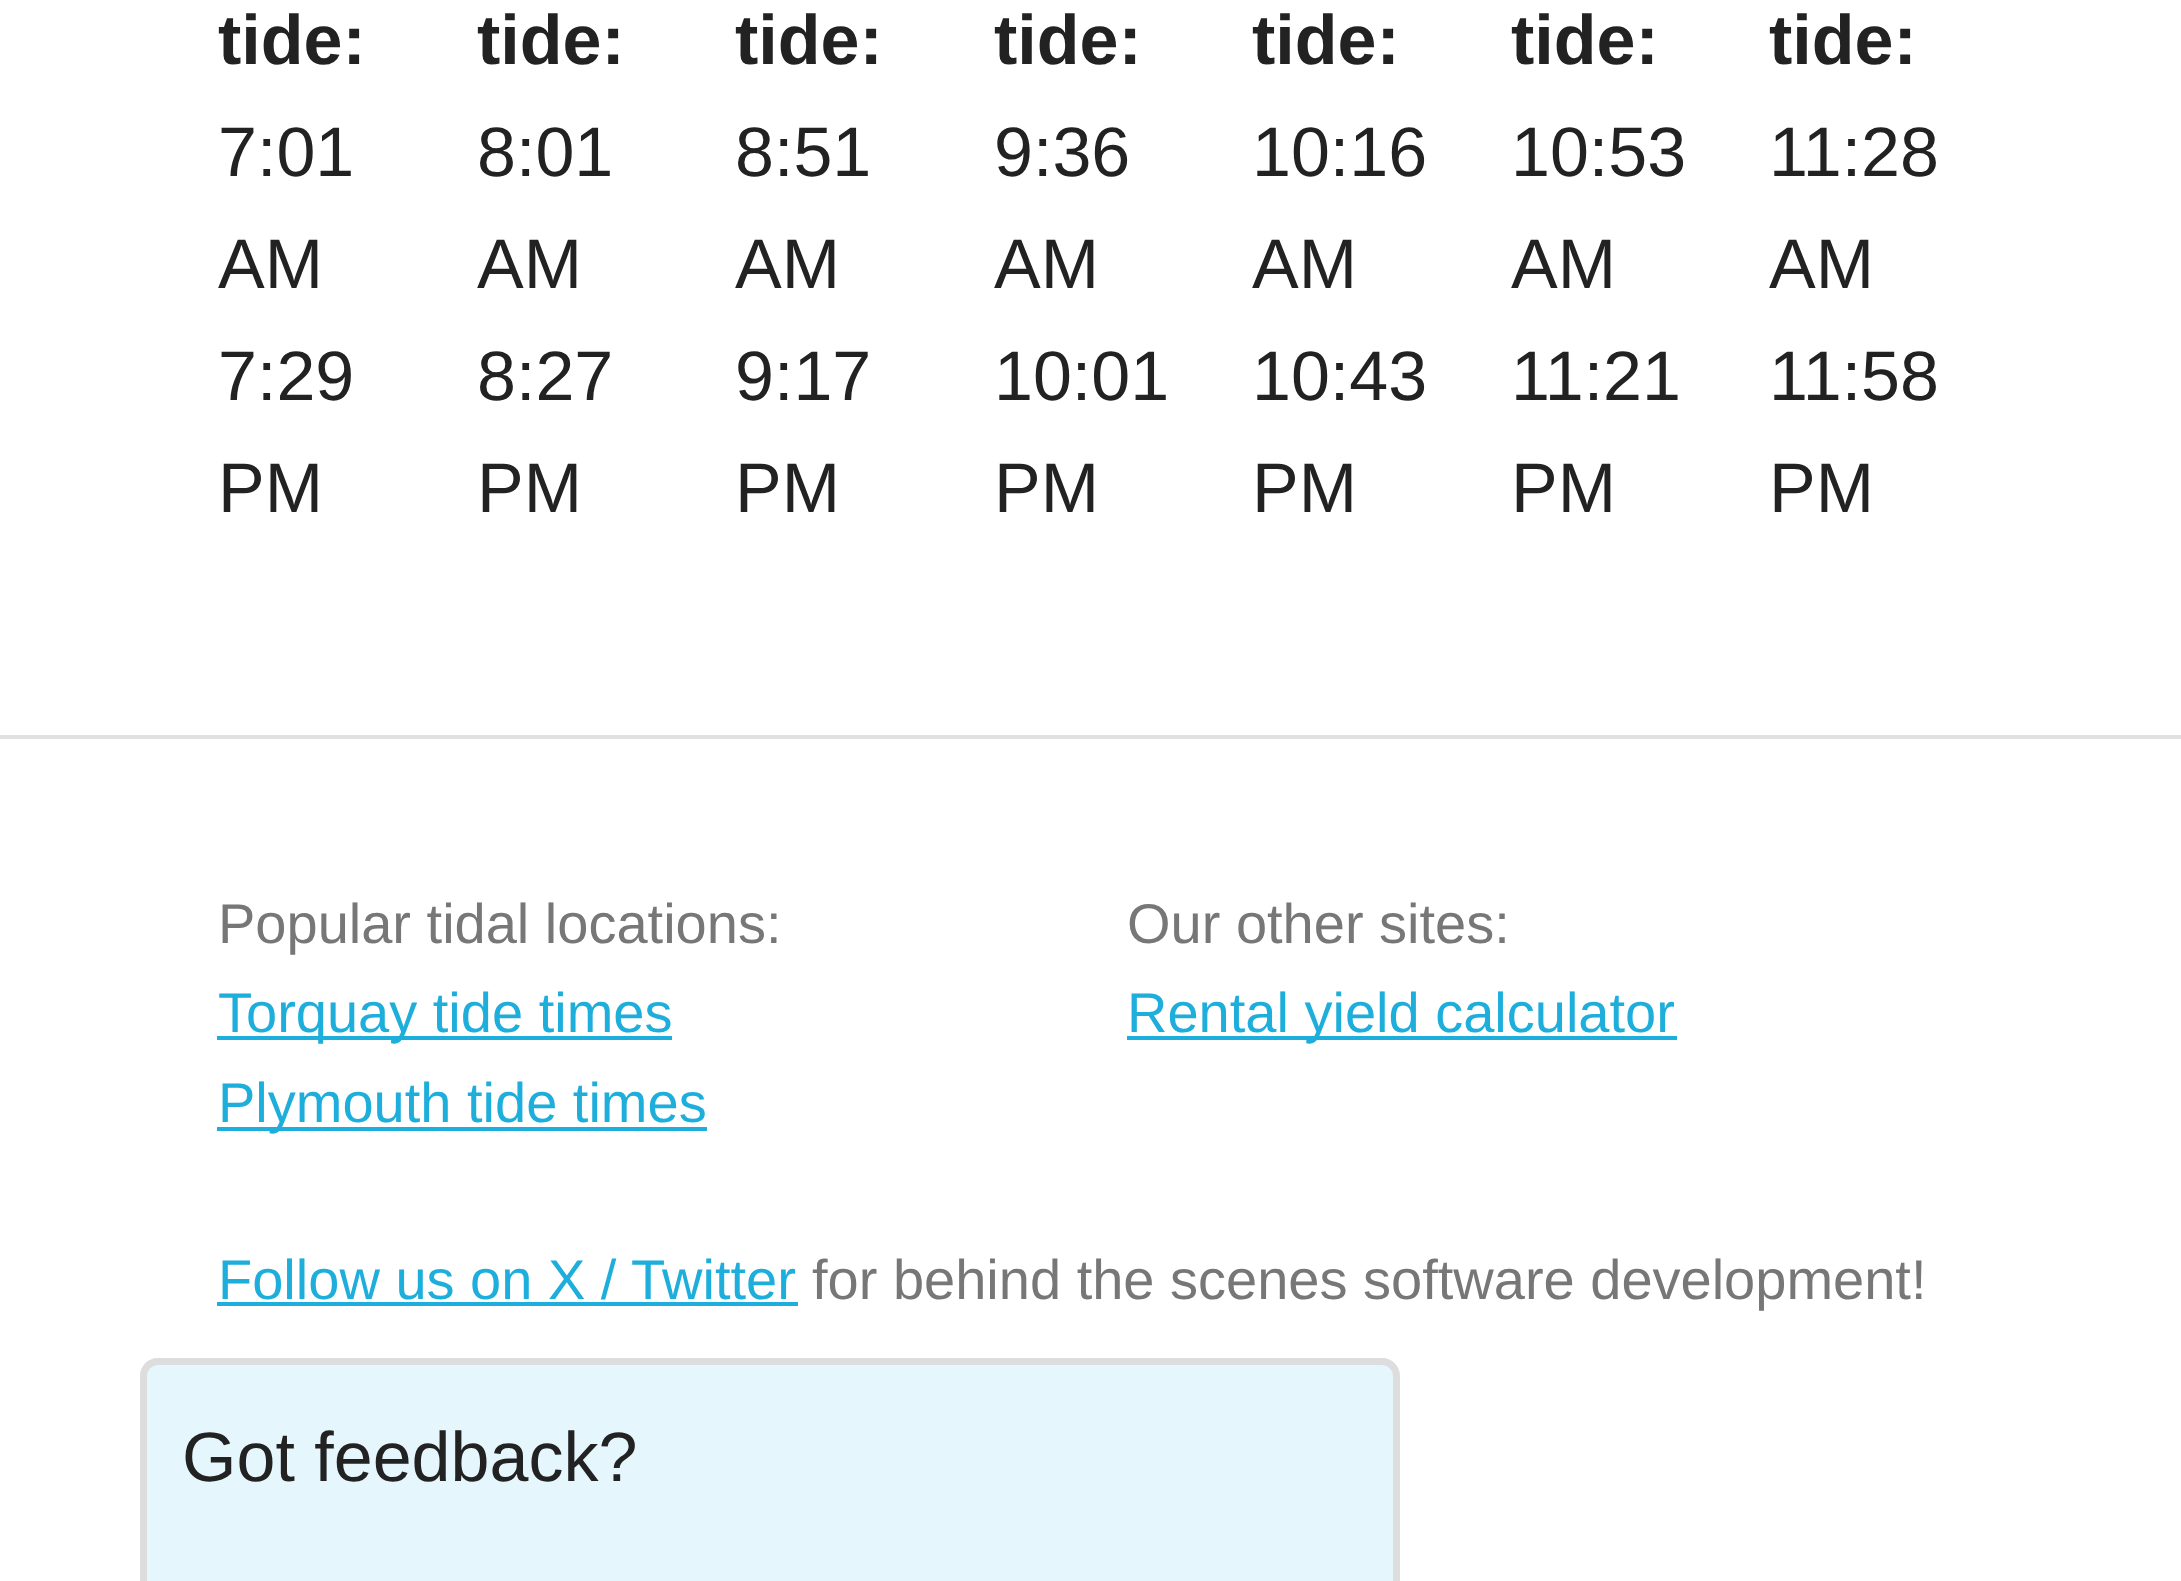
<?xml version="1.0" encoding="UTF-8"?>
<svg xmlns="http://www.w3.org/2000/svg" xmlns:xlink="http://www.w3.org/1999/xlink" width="2181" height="1581">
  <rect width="100%" height="100%" fill="#ffffff" />
  <rect y="735" width="2181" height="4" fill="#e1e1e1" />
  <rect x="217" y="1036" width="455" height="4" fill="#1eaedb" />
  <rect x="217" y="1127" width="490" height="4" fill="#1eaedb" />
  <rect x="1127" y="1036" width="550" height="4" fill="#1eaedb" />
  <rect x="217" y="1302" width="581" height="4" fill="#1eaedb" />
  <path d="M 158 1358 h 1224 c 10 0 18 8 18 18 v 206 h -1260 v -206 c 0 -10 8 -18 18 -18 z" fill="#e5f6fd" />
  <path d="M 158 1358 h 1224 c 10 0 18 8 18 18 v 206 h -1260 v -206 c 0 -10 8 -18 18 -18 z m 0 7 h 1224 c 6 0 11 5 11 11 v 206 h -1246 v -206 c 0 -6 5 -11 11 -11 z" fill="#dddddd" fill-rule="evenodd" />
  <text x="218" y="64" style="font-family: Liberation Sans; font-size: 70px; font-weight: bold; fill: #222222">tide:</text>
  <text x="218" y="176" style="font-family: Liberation Sans; font-size: 70px; fill: #222222">7:01</text>
  <text x="218" y="288" style="font-family: Liberation Sans; font-size: 70px; fill: #222222">AM</text>
  <text x="218" y="400" style="font-family: Liberation Sans; font-size: 70px; fill: #222222">7:29</text>
  <text x="218" y="512" style="font-family: Liberation Sans; font-size: 70px; fill: #222222">PM</text>
  <text x="477" y="64" style="font-family: Liberation Sans; font-size: 70px; font-weight: bold; fill: #222222">tide:</text>
  <text x="477" y="176" style="font-family: Liberation Sans; font-size: 70px; fill: #222222">8:01</text>
  <text x="477" y="288" style="font-family: Liberation Sans; font-size: 70px; fill: #222222">AM</text>
  <text x="477" y="400" style="font-family: Liberation Sans; font-size: 70px; fill: #222222">8:27</text>
  <text x="477" y="512" style="font-family: Liberation Sans; font-size: 70px; fill: #222222">PM</text>
  <text x="735" y="64" style="font-family: Liberation Sans; font-size: 70px; font-weight: bold; fill: #222222">tide:</text>
  <text x="735" y="176" style="font-family: Liberation Sans; font-size: 70px; fill: #222222">8:51</text>
  <text x="735" y="288" style="font-family: Liberation Sans; font-size: 70px; fill: #222222">AM</text>
  <text x="735" y="400" style="font-family: Liberation Sans; font-size: 70px; fill: #222222">9:17</text>
  <text x="735" y="512" style="font-family: Liberation Sans; font-size: 70px; fill: #222222">PM</text>
  <text x="994" y="64" style="font-family: Liberation Sans; font-size: 70px; font-weight: bold; fill: #222222">tide:</text>
  <text x="994" y="176" style="font-family: Liberation Sans; font-size: 70px; fill: #222222">9:36</text>
  <text x="994" y="288" style="font-family: Liberation Sans; font-size: 70px; fill: #222222">AM</text>
  <text x="994" y="400" style="font-family: Liberation Sans; font-size: 70px; fill: #222222">10:01</text>
  <text x="994" y="512" style="font-family: Liberation Sans; font-size: 70px; fill: #222222">PM</text>
  <text x="1252" y="64" style="font-family: Liberation Sans; font-size: 70px; font-weight: bold; fill: #222222">tide:</text>
  <text x="1252" y="176" style="font-family: Liberation Sans; font-size: 70px; fill: #222222">10:16</text>
  <text x="1252" y="288" style="font-family: Liberation Sans; font-size: 70px; fill: #222222">AM</text>
  <text x="1252" y="400" style="font-family: Liberation Sans; font-size: 70px; fill: #222222">10:43</text>
  <text x="1252" y="512" style="font-family: Liberation Sans; font-size: 70px; fill: #222222">PM</text>
  <text x="1511" y="64" style="font-family: Liberation Sans; font-size: 70px; font-weight: bold; fill: #222222">tide:</text>
  <text x="1511" y="176" style="font-family: Liberation Sans; font-size: 70px; fill: #222222">10:53</text>
  <text x="1511" y="288" style="font-family: Liberation Sans; font-size: 70px; fill: #222222">AM</text>
  <text x="1511" y="400" style="font-family: Liberation Sans; font-size: 70px; fill: #222222">11:21</text>
  <text x="1511" y="512" style="font-family: Liberation Sans; font-size: 70px; fill: #222222">PM</text>
  <text x="1769" y="64" style="font-family: Liberation Sans; font-size: 70px; font-weight: bold; fill: #222222">tide:</text>
  <text x="1769" y="176" style="font-family: Liberation Sans; font-size: 70px; fill: #222222">11:28</text>
  <text x="1769" y="288" style="font-family: Liberation Sans; font-size: 70px; fill: #222222">AM</text>
  <text x="1769" y="400" style="font-family: Liberation Sans; font-size: 70px; fill: #222222">11:58</text>
  <text x="1769" y="512" style="font-family: Liberation Sans; font-size: 70px; fill: #222222">PM</text>
  <text x="218" y="943" style="font-family: Liberation Sans; font-size: 56px; fill: #777777">Popular tidal locations:</text>
  <text x="218" y="1032" style="font-family: Liberation Sans; font-size: 56px; fill: #1eaedb">Torquay tide times</text>
  <text x="218" y="1122" style="font-family: Liberation Sans; font-size: 56px; fill: #1eaedb">Plymouth tide times</text>
  <text x="1127" y="943" style="font-family: Liberation Sans; font-size: 56px; fill: #777777">Our other sites:</text>
  <text x="1127" y="1032" style="font-family: Liberation Sans; font-size: 56px; fill: #1eaedb">Rental yield calculator</text>
  <text x="218" y="1299" style="font-family: Liberation Sans; font-size: 56px; fill: #1eaedb">Follow us on X / Twitter</text>
  <text x="812" y="1299" style="font-family: Liberation Sans; font-size: 56px; fill: #777777">for behind the scenes software development!</text>
  <text x="182" y="1481" style="font-family: Liberation Sans; font-size: 70px; fill: #222222">Got feedback?</text>
</svg>
